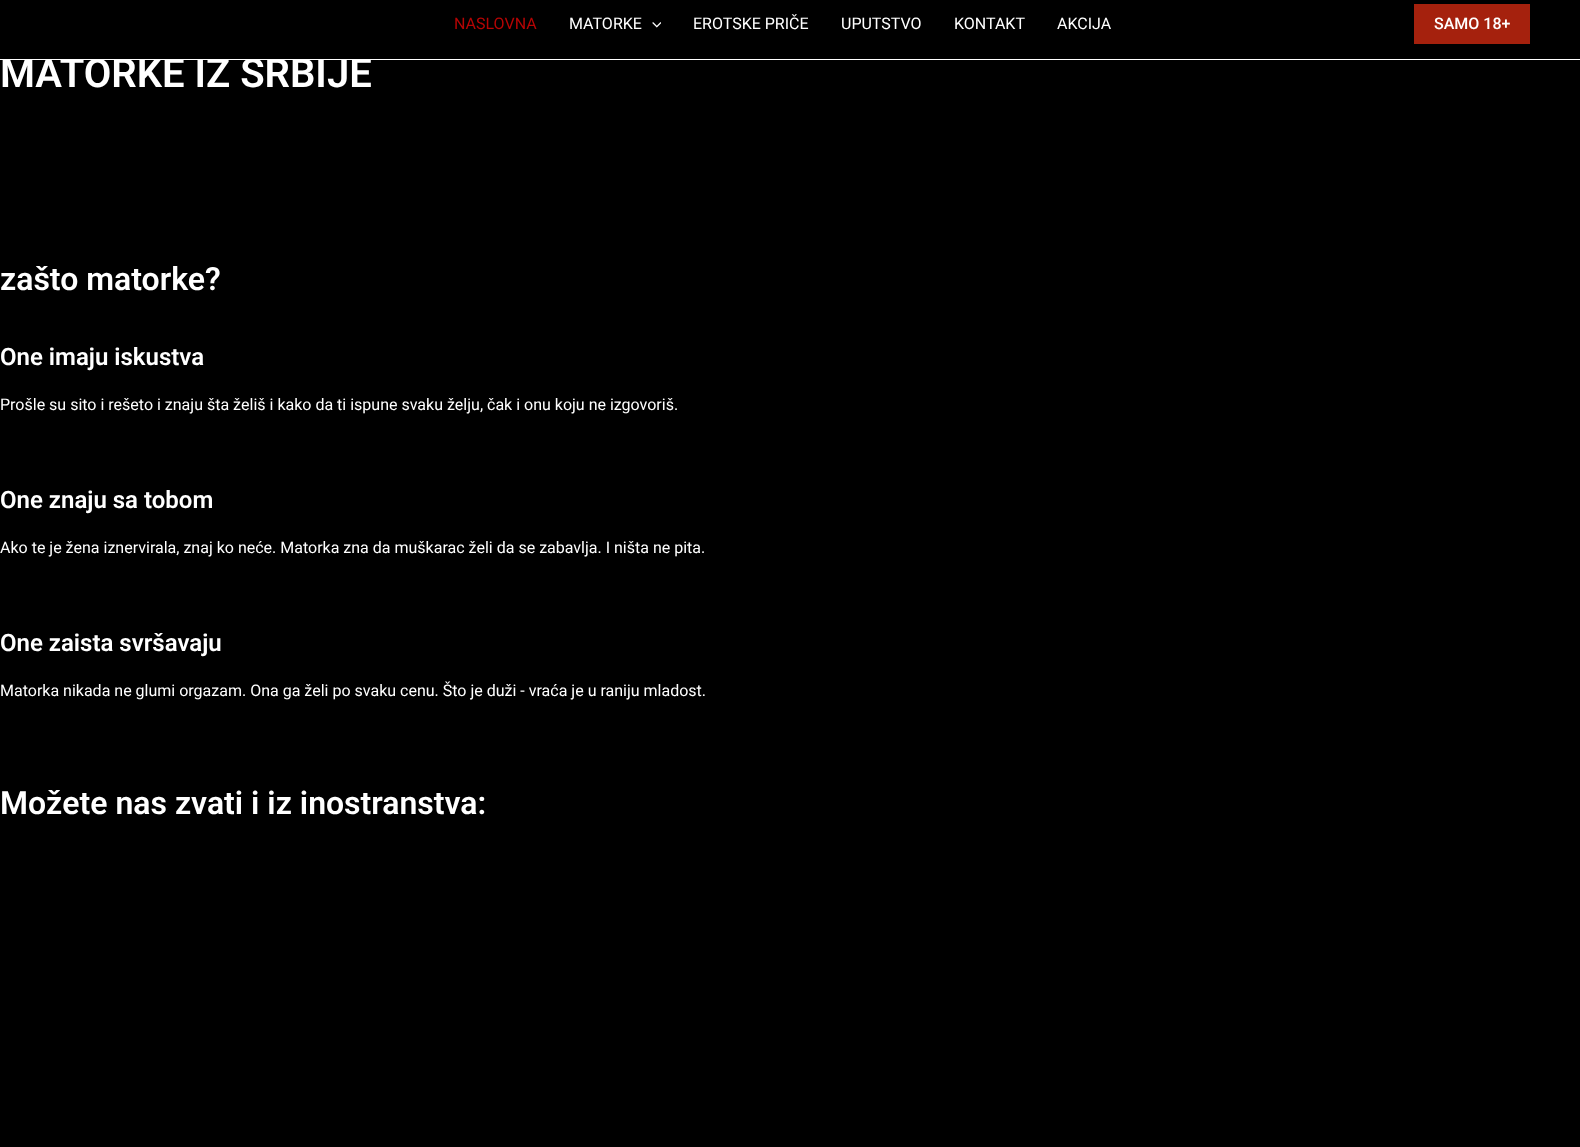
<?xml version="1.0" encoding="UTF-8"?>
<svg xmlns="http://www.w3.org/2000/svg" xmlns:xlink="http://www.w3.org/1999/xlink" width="1580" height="1147">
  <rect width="100%" height="100%" fill="#000000" />
  <rect y="59" width="1580" height="1" fill="#ffffff" />
  <image x="652" y="22" width="9" height="6" xlink:href="image1.png" />
  <rect x="1414" y="4" width="116" height="40" fill="#a5210d" />
  <text x="454" y="29" style="font-family: Roboto; font-size: 16px; fill: #b50404">NASLOVNA</text>
  <text x="569" y="29" style="font-family: Roboto; font-size: 16px; fill: #ffffff">MATORKE</text>
  <text x="693" y="29" style="font-family: Roboto; font-size: 16px; fill: #ffffff">EROTSKE PRIČE</text>
  <text x="841" y="29" style="font-family: Roboto; font-size: 16px; fill: #ffffff">UPUTSTVO</text>
  <text x="954" y="29" style="font-family: Roboto; font-size: 16px; fill: #ffffff">KONTAKT</text>
  <text x="1057" y="29" style="font-family: Roboto; font-size: 16px; fill: #ffffff">AKCIJA</text>
  <text x="1434" y="29" style="font-family: Roboto; font-size: 16px; font-weight: 500; fill: #ffffff">SAMO 18+</text>
  <text x="0" y="87" style="font-family: Roboto; font-size: 40px; font-weight: 600; fill: #ffffff">MATORKE IZ SRBIJE</text>
  <rect x="2" y="58" width="369" height="1" fill="#000000" />
  <text x="0" y="290" style="font-family: Roboto; font-size: 32px; font-weight: 600; fill: #ffffff">zašto matorke?</text>
  <text x="0" y="365" style="font-family: Roboto; font-size: 24px; font-weight: 600; fill: #ffffff">One imaju iskustva</text>
  <text x="0" y="410" style="font-family: Roboto; font-size: 16px; fill: #ffffff">Prošle su sito i rešeto i znaju šta želiš i kako da ti ispune svaku želju, čak i onu koju ne izgovoriš.</text>
  <text x="0" y="508" style="font-family: Roboto; font-size: 24px; font-weight: 600; fill: #ffffff">One znaju sa tobom</text>
  <text x="0" y="553" style="font-family: Roboto; font-size: 16px; fill: #ffffff">Ako te je žena iznervirala, znaj ko neće. Matorka zna da muškarac želi da se zabavlja. I ništa ne pita.</text>
  <text x="0" y="651" style="font-family: Roboto; font-size: 24px; font-weight: 600; fill: #ffffff">One zaista svršavaju</text>
  <text x="0" y="696" style="font-family: Roboto; font-size: 16px; fill: #ffffff">Matorka nikada ne glumi orgazam. Ona ga želi po svaku cenu. Što je duži - vraća je u raniju mladost.</text>
  <text x="0" y="814" style="font-family: Roboto; font-size: 32px; font-weight: 600; fill: #ffffff">Možete nas zvati i iz inostranstva:</text>
</svg>
